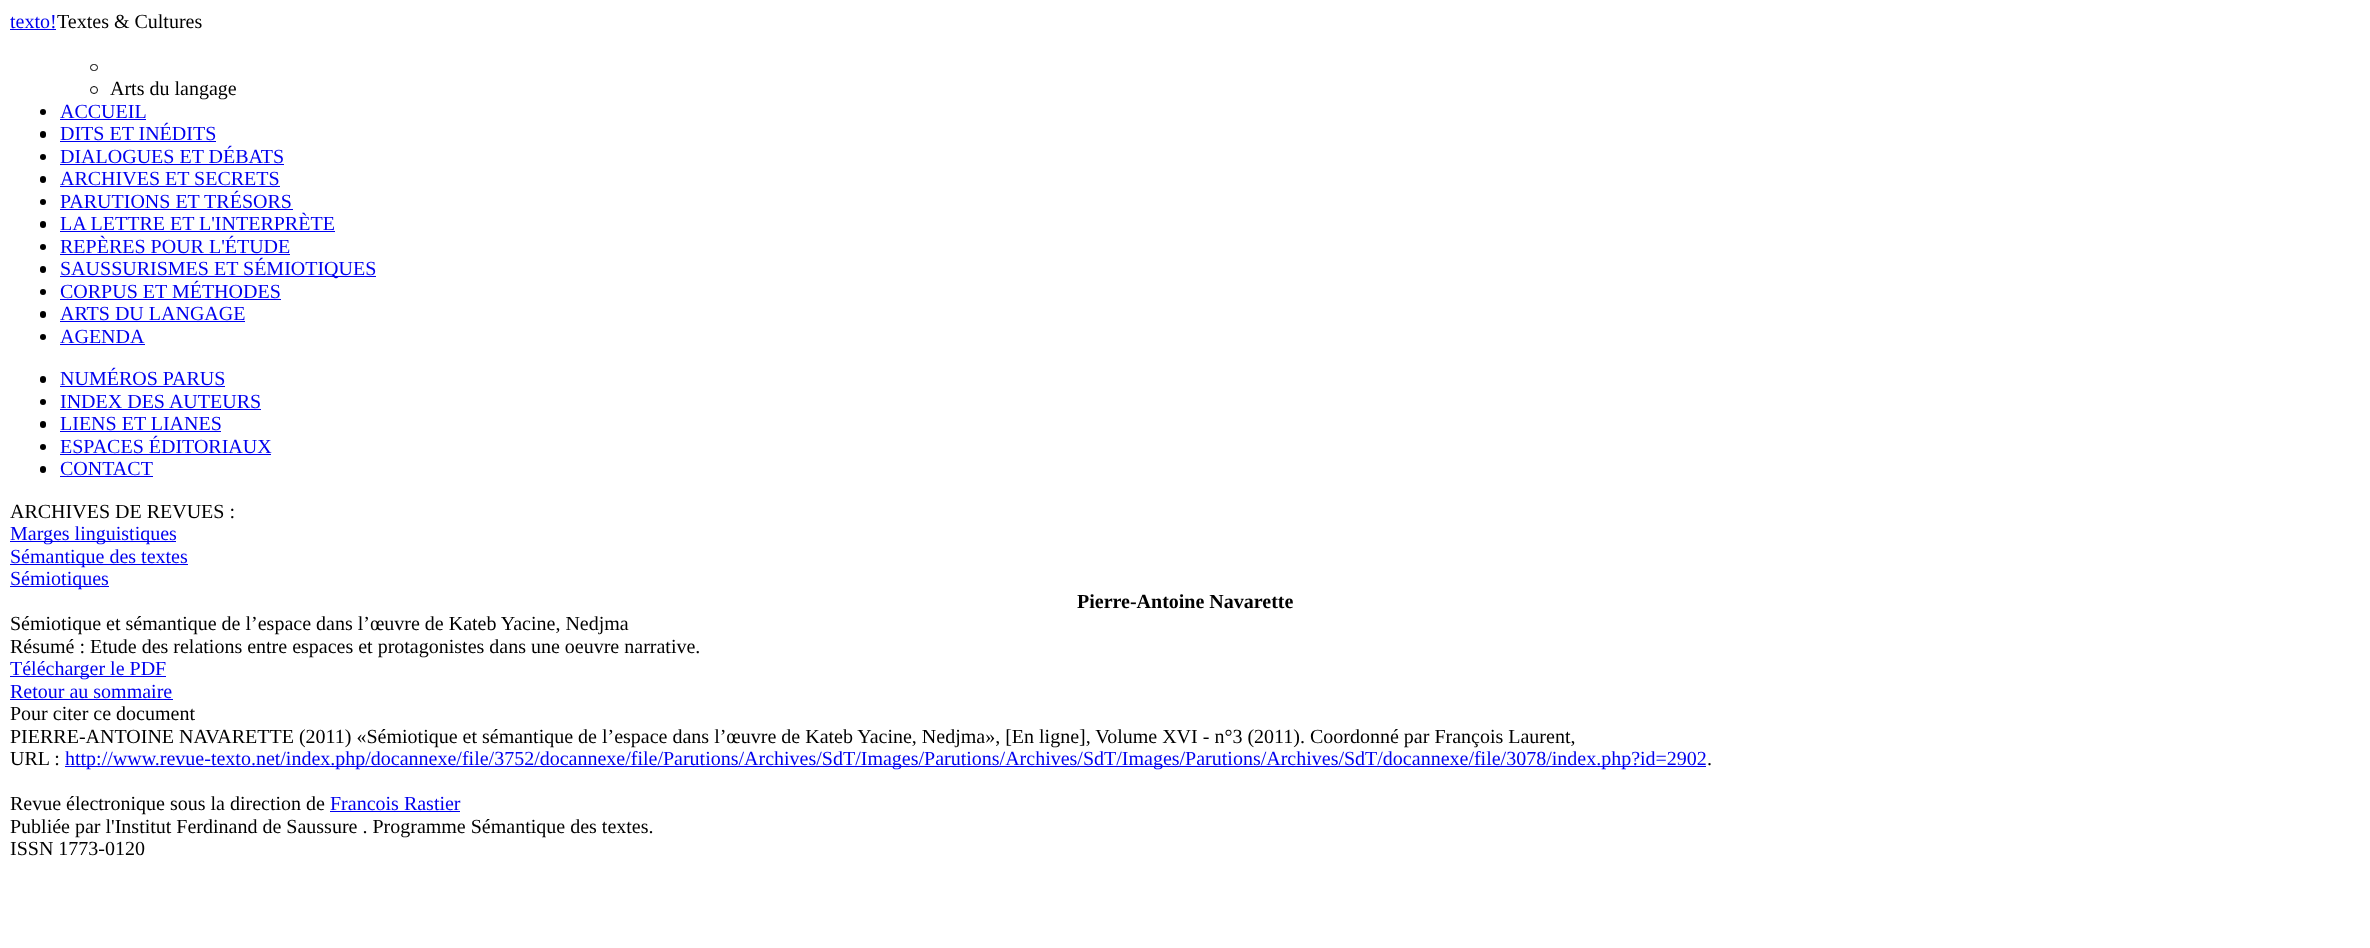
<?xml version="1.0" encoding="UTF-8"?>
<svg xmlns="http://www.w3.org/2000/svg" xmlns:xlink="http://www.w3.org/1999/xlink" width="2370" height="948">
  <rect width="100%" height="100%" fill="#ffffff" />
  <rect x="10" y="29" width="46" height="1" fill="#0000ee" />
  <rect x="90.5" y="64.5" width="7" height="6" rx="3" fill="none" stroke="#000000" />
  <circle cx="94" cy="90" r="3.5" fill="none" stroke="#000000" />
  <circle cx="43" cy="112" r="3" fill="#000000" />
  <rect x="60" y="119" width="86" height="1" fill="#0000ee" />
  <rect x="40" y="131" width="6" height="7" rx="3" fill="#000000" />
  <rect x="60" y="141" width="156" height="1" fill="#0000ee" />
  <circle cx="43" cy="157" r="3" fill="#000000" />
  <rect x="60" y="164" width="224" height="1" fill="#0000ee" />
  <rect x="40" y="176" width="6" height="7" rx="3" fill="#000000" />
  <rect x="60" y="186" width="220" height="1" fill="#0000ee" />
  <circle cx="43" cy="202" r="3" fill="#000000" />
  <rect x="60" y="209" width="233" height="1" fill="#0000ee" />
  <rect x="40" y="221" width="6" height="7" rx="3" fill="#000000" />
  <rect x="60" y="231" width="275" height="1" fill="#0000ee" />
  <circle cx="43" cy="247" r="3" fill="#000000" />
  <rect x="60" y="254" width="230" height="1" fill="#0000ee" />
  <rect x="40" y="266" width="6" height="7" rx="3" fill="#000000" />
  <rect x="60" y="276" width="316" height="1" fill="#0000ee" />
  <circle cx="43" cy="292" r="3" fill="#000000" />
  <rect x="60" y="299" width="221" height="1" fill="#0000ee" />
  <rect x="40" y="311" width="6" height="7" rx="3" fill="#000000" />
  <rect x="60" y="321" width="185" height="1" fill="#0000ee" />
  <circle cx="43" cy="337" r="3" fill="#000000" />
  <rect x="60" y="344" width="85" height="1" fill="#0000ee" />
  <rect x="40" y="376" width="6" height="7" rx="3" fill="#000000" />
  <rect x="60" y="386" width="165" height="1" fill="#0000ee" />
  <circle cx="43" cy="402" r="3" fill="#000000" />
  <rect x="60" y="409" width="201" height="1" fill="#0000ee" />
  <rect x="40" y="421" width="6" height="7" rx="3" fill="#000000" />
  <rect x="60" y="431" width="161" height="1" fill="#0000ee" />
  <circle cx="43" cy="447" r="3" fill="#000000" />
  <rect x="60" y="454" width="211" height="1" fill="#0000ee" />
  <rect x="40" y="466" width="6" height="7" rx="3" fill="#000000" />
  <rect x="60" y="476" width="93" height="1" fill="#0000ee" />
  <rect x="10" y="541" width="166" height="1" fill="#0000ee" />
  <rect x="10" y="564" width="178" height="1" fill="#0000ee" />
  <rect x="10" y="586" width="99" height="1" fill="#0000ee" />
  <rect x="10" y="676" width="156" height="1" fill="#0000ee" />
  <rect x="10" y="699" width="163" height="1" fill="#0000ee" />
  <rect x="65" y="766" width="1641" height="1" fill="#0000ee" />
  <rect x="330" y="811" width="130" height="1" fill="#0000ee" />
  <text x="10" y="28" style="font-family: Liberation Serif; font-size: 20px; fill: #0000ee">texto!</text>
  <text x="57" y="28" style="font-family: Liberation Serif; font-size: 20px; fill: #000000">Textes &amp; Cultures</text>
  <text x="110" y="95" style="font-family: Liberation Serif; font-size: 20px; fill: #000000">Arts du langage</text>
  <text x="60" y="118" style="font-family: Liberation Serif; font-size: 20px; fill: #0000ee">ACCUEIL</text>
  <text x="60" y="140" style="font-family: Liberation Serif; font-size: 20px; fill: #0000ee">DITS ET INÉDITS</text>
  <text x="60" y="163" style="font-family: Liberation Serif; font-size: 20px; fill: #0000ee">DIALOGUES ET DÉBATS</text>
  <text x="60" y="185" style="font-family: Liberation Serif; font-size: 20px; fill: #0000ee">ARCHIVES ET SECRETS</text>
  <text x="60" y="208" style="font-family: Liberation Serif; font-size: 20px; fill: #0000ee">PARUTIONS ET TRÉSORS</text>
  <text x="60" y="230" style="font-family: Liberation Serif; font-size: 20px; fill: #0000ee">LA LETTRE ET L'INTERPRÈTE</text>
  <text x="60" y="253" style="font-family: Liberation Serif; font-size: 20px; fill: #0000ee">REPÈRES POUR L'ÉTUDE</text>
  <text x="60" y="275" style="font-family: Liberation Serif; font-size: 20px; fill: #0000ee">SAUSSURISMES ET SÉMIOTIQUES</text>
  <text x="60" y="298" style="font-family: Liberation Serif; font-size: 20px; fill: #0000ee">CORPUS ET MÉTHODES</text>
  <text x="60" y="320" style="font-family: Liberation Serif; font-size: 20px; fill: #0000ee">ARTS DU LANGAGE</text>
  <text x="60" y="343" style="font-family: Liberation Serif; font-size: 20px; fill: #0000ee">AGENDA</text>
  <text x="60" y="385" style="font-family: Liberation Serif; font-size: 20px; fill: #0000ee">NUMÉROS PARUS</text>
  <text x="60" y="408" style="font-family: Liberation Serif; font-size: 20px; fill: #0000ee">INDEX DES AUTEURS</text>
  <text x="60" y="430" style="font-family: Liberation Serif; font-size: 20px; fill: #0000ee">LIENS ET LIANES</text>
  <text x="60" y="453" style="font-family: Liberation Serif; font-size: 20px; fill: #0000ee">ESPACES ÉDITORIAUX</text>
  <text x="60" y="475" style="font-family: Liberation Serif; font-size: 20px; fill: #0000ee">CONTACT</text>
  <text x="10" y="518" style="font-family: Liberation Serif; font-size: 20px; fill: #000000">ARCHIVES DE REVUES :</text>
  <text x="10" y="540" style="font-family: Liberation Serif; font-size: 20px; fill: #0000ee">Marges linguistiques</text>
  <text x="10" y="563" style="font-family: Liberation Serif; font-size: 20px; fill: #0000ee">Sémantique des textes</text>
  <text x="10" y="585" style="font-family: Liberation Serif; font-size: 20px; fill: #0000ee">Sémiotiques</text>
  <text x="1077" y="608" style="font-family: Liberation Serif; font-size: 20px; font-weight: bold; fill: #000000">Pierre-Antoine Navarette</text>
  <text x="10" y="630" style="font-family: Liberation Serif; font-size: 20px; fill: #000000">Sémiotique et sémantique de l’espace dans l’œuvre de Kateb Yacine, Nedjma</text>
  <text x="10" y="653" style="font-family: Liberation Serif; font-size: 20px; fill: #000000">Résumé : Etude des relations entre espaces et protagonistes dans une oeuvre narrative.</text>
  <text x="10" y="675" style="font-family: Liberation Serif; font-size: 20px; fill: #0000ee">Télécharger le PDF</text>
  <text x="10" y="698" style="font-family: Liberation Serif; font-size: 20px; fill: #0000ee">Retour au sommaire</text>
  <text x="10" y="720" style="font-family: Liberation Serif; font-size: 20px; fill: #000000">Pour citer ce document</text>
  <text x="10" y="743" style="font-family: Liberation Serif; font-size: 20px; fill: #000000">PIERRE-ANTOINE NAVARETTE (2011) «Sémiotique et sémantique de l’espace dans l’œuvre de Kateb Yacine, Nedjma», [En ligne], Volume XVI - n°3 (2011). Coordonné par François Laurent,</text>
  <text x="10" y="765" style="font-family: Liberation Serif; font-size: 20px; fill: #000000">URL :</text>
  <text x="65" y="765" style="font-family: Liberation Serif; font-size: 20px; fill: #0000ee">http://www.revue-texto.net/index.php/docannexe/file/3752/docannexe/file/Parutions/Archives/SdT/Images/Parutions/Archives/SdT/Images/Parutions/Archives/SdT/docannexe/file/3078/index.php?id=2902</text>
  <text x="1707" y="765" style="font-family: Liberation Serif; font-size: 20px; fill: #000000">.</text>
  <text x="10" y="810" style="font-family: Liberation Serif; font-size: 20px; fill: #000000">Revue électronique sous la direction de</text>
  <text x="330" y="810" style="font-family: Liberation Serif; font-size: 20px; fill: #0000ee">Francois Rastier</text>
  <text x="10" y="833" style="font-family: Liberation Serif; font-size: 20px; fill: #000000">Publiée par l'Institut Ferdinand de Saussure . Programme Sémantique des textes.</text>
  <text x="10" y="855" style="font-family: Liberation Serif; font-size: 20px; fill: #000000">ISSN 1773-0120</text>
</svg>
